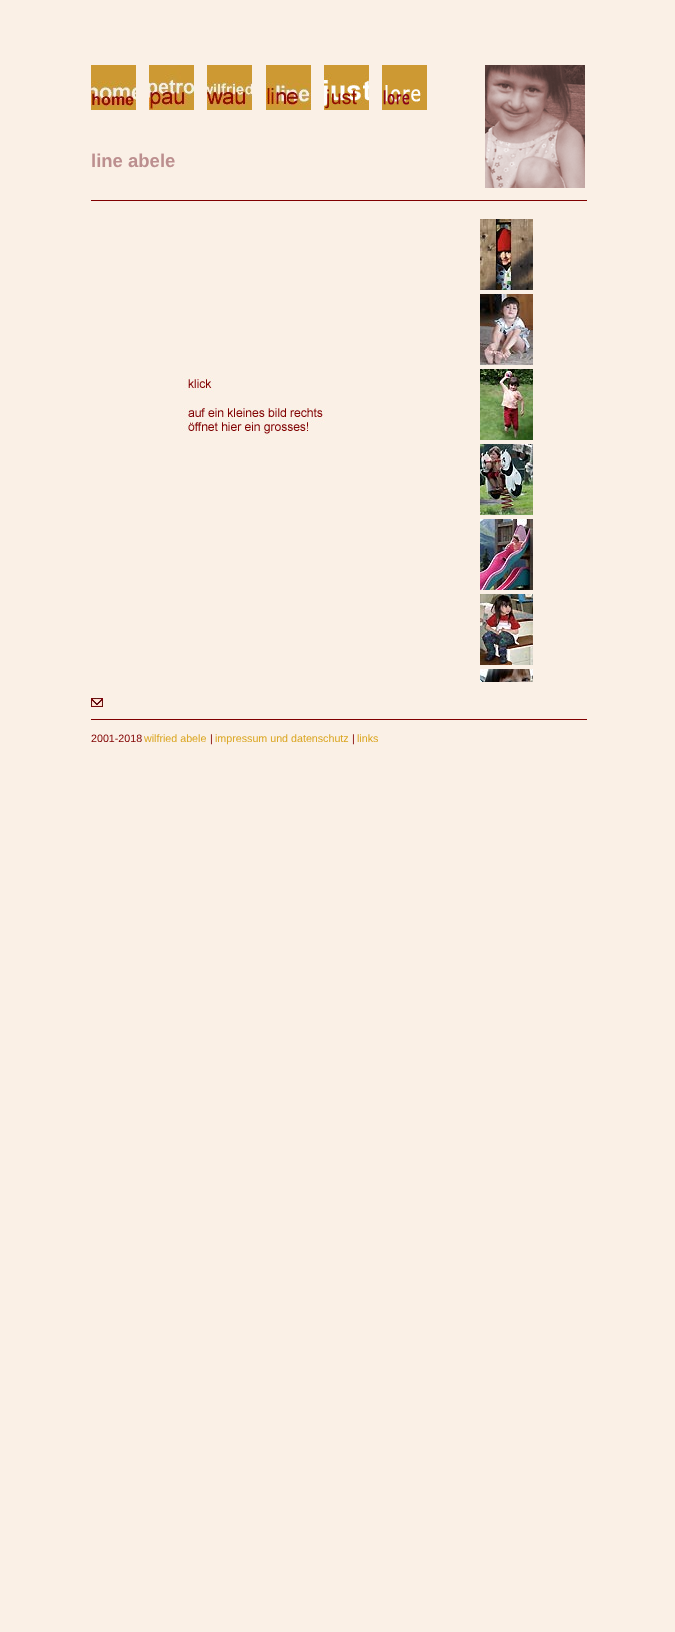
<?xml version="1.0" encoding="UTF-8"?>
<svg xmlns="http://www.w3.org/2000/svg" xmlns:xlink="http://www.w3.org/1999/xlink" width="675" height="1632">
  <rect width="100%" height="100%" fill="#faf0e6" />
  <image x="91" y="65" width="45" height="45" xlink:href="image1.png" />
  <image x="149" y="65" width="45" height="45" xlink:href="image2.png" />
  <image x="207" y="65" width="45" height="45" xlink:href="image3.png" />
  <image x="266" y="65" width="45" height="45" xlink:href="image4.png" />
  <image x="324" y="65" width="45" height="45" xlink:href="image5.png" />
  <image x="382" y="65" width="45" height="45" xlink:href="image6.png" />
  <image x="485" y="65" width="100" height="123" xlink:href="image7.png" />
  <rect x="91" y="200" width="496" height="1" fill="#800000" />
  <image x="182" y="376" width="144" height="64" xlink:href="image8.png" />
  <image x="480" y="219" width="53" height="71" xlink:href="image9.png" />
  <image x="480" y="294" width="53" height="71" xlink:href="image10.png" />
  <image x="480" y="369" width="53" height="71" xlink:href="image11.png" />
  <image x="480" y="444" width="53" height="71" xlink:href="image12.png" />
  <image x="480" y="519" width="53" height="71" xlink:href="image13.png" />
  <image x="480" y="594" width="53" height="71" xlink:href="image14.png" />
  <image x="480" y="669" width="53" height="13" xlink:href="image15.png" />
  <image x="91" y="698" width="12" height="9" xlink:href="image16.png" />
  <rect x="91" y="719" width="496" height="1" fill="#800000" />
  <text x="91" y="167" style="font-family: Liberation Sans; font-size: 18.5px; font-weight: bold; fill: #bc8f8f">line abele</text>
  <text x="91" y="742" style="font-family: Liberation Sans; font-size: 10.7px; fill: #800000">2001-2018</text>
  <text x="144" y="742" style="font-family: Liberation Sans; font-size: 10.7px; fill: #daa520">wilfried abele</text>
  <text x="210" y="742" style="font-family: Liberation Sans; font-size: 10.7px; fill: #800000">|</text>
  <text x="215" y="742" style="font-family: Liberation Sans; font-size: 10.7px; fill: #daa520">impressum und datenschutz</text>
  <text x="352" y="742" style="font-family: Liberation Sans; font-size: 10.7px; fill: #800000">|</text>
  <text x="357" y="742" style="font-family: Liberation Sans; font-size: 10.7px; fill: #daa520">links</text>
</svg>
